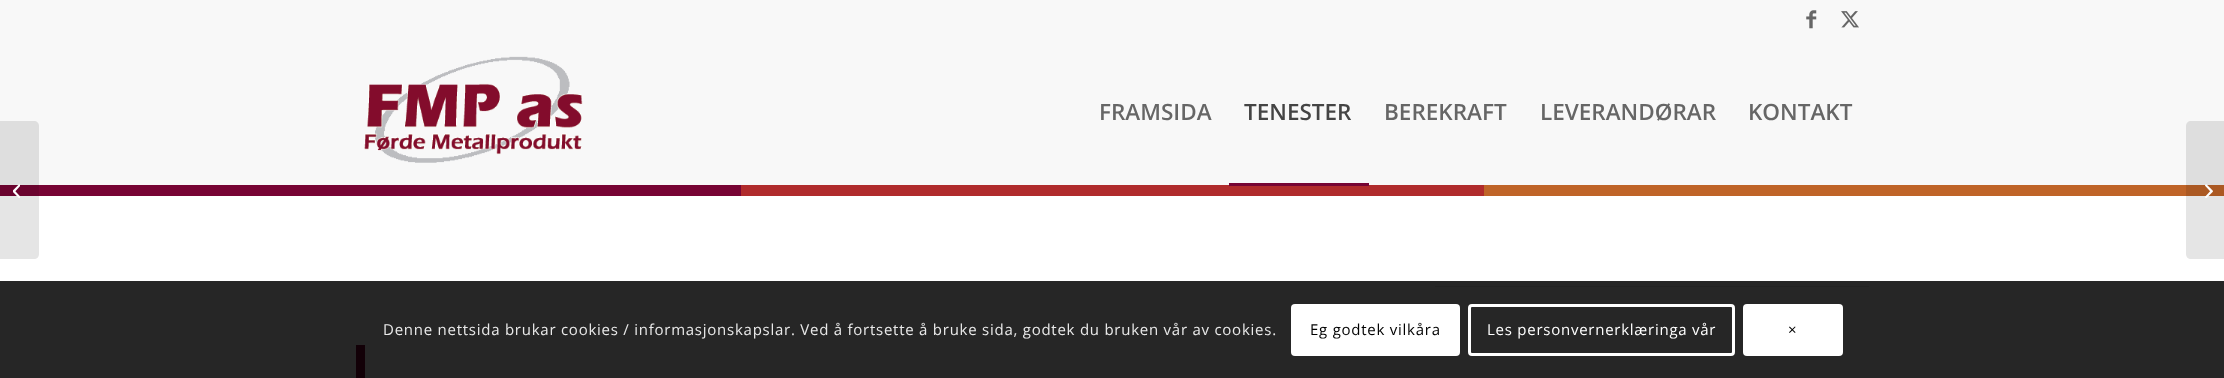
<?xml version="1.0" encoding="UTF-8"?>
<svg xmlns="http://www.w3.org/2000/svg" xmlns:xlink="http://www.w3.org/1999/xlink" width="2224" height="378">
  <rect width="100%" height="100%" fill="#f8f8f8" />
  <image x="1806" y="10" width="11" height="19" xlink:href="image1.png" />
  <image x="1841" y="11" width="18" height="17" xlink:href="image2.png" />
  <image x="364" y="56" width="219" height="107" xlink:href="image3.png" />
  <rect x="741" y="185" width="743" height="11" fill="#b02b2c" />
  <rect x="1229" y="183" width="140" height="3" fill="#770434" />
  <rect y="185" width="741" height="11" fill="#770434" />
  <rect y="196" width="2224" height="182" fill="#ffffff" />
  <path d="M 0 121 h 34 c 3 0 5 2 5 5 v 128 c 0 3 -2 5 -5 5 h -34 z" fill="#000000" fill-opacity="0.1" />
  <image x="13" y="184" width="7" height="14" xlink:href="image4.png" />
  <rect x="1484" y="185" width="740" height="11" fill="#bf6428" />
  <path d="M 2191 121 h 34 v 138 h -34 c -3 0 -5 -2 -5 -5 v -128 c 0 -3 2 -5 5 -5 z" fill="#000000" fill-opacity="0.1" />
  <image x="2205" y="184" width="8" height="14" xlink:href="image5.png" />
  <rect x="1435" y="286" width="434" height="1" fill="#e3e3e3" />
  <rect x="356" y="345" width="9" height="33" fill="#770434" />
  <rect y="281" width="2224" height="97" fill="#000000" fill-opacity="0.85" />
  <rect x="1291" y="304" width="169" height="52" rx="4" fill="#ffffff" />
  <rect x="1469.5" y="305.5" width="264" height="49" rx="2.5" fill="none" stroke="#ffffff" stroke-width="3" />
  <rect x="1743" y="304" width="100" height="52" rx="4" fill="#ffffff" />
  <text x="1099" y="120" style="font-family: Open Sans; font-size: 22.5px; font-weight: 600; fill: #666666">FRAMSIDA</text>
  <text x="1244" y="120" style="font-family: Open Sans; font-size: 22.5px; font-weight: 600; fill: #444444">TENESTER</text>
  <text x="1384" y="120" style="font-family: Open Sans; font-size: 22.5px; font-weight: 600; fill: #666666">BEREKRAFT</text>
  <text x="1540" y="120" style="font-family: Open Sans; font-size: 22.5px; font-weight: 600; fill: #666666">LEVERANDØRAR</text>
  <text x="1748" y="120" style="font-family: Open Sans; font-size: 22.5px; font-weight: 600; fill: #666666">KONTAKT</text>
  <text x="383" y="335" style="font-family: Open Sans; font-size: 15px; letter-spacing: 0.75px; fill: #e9e9e9">Denne nettsida brukar cookies / informasjonskapslar. Ved å fortsette å bruke sida, godtek du bruken vår av cookies.</text>
  <text x="1310" y="335" style="font-family: Open Sans; font-size: 15px; letter-spacing: 0.75px; fill: #000000">Eg godtek vilkåra</text>
  <text x="1487" y="335" style="font-family: Open Sans; font-size: 15px; letter-spacing: 0.75px; fill: #ffffff">Les personvernerklæringa vår</text>
  <text x="1788" y="335" style="font-family: Open Sans; font-size: 15px; letter-spacing: 0.75px; fill: #000000">×</text>
</svg>
